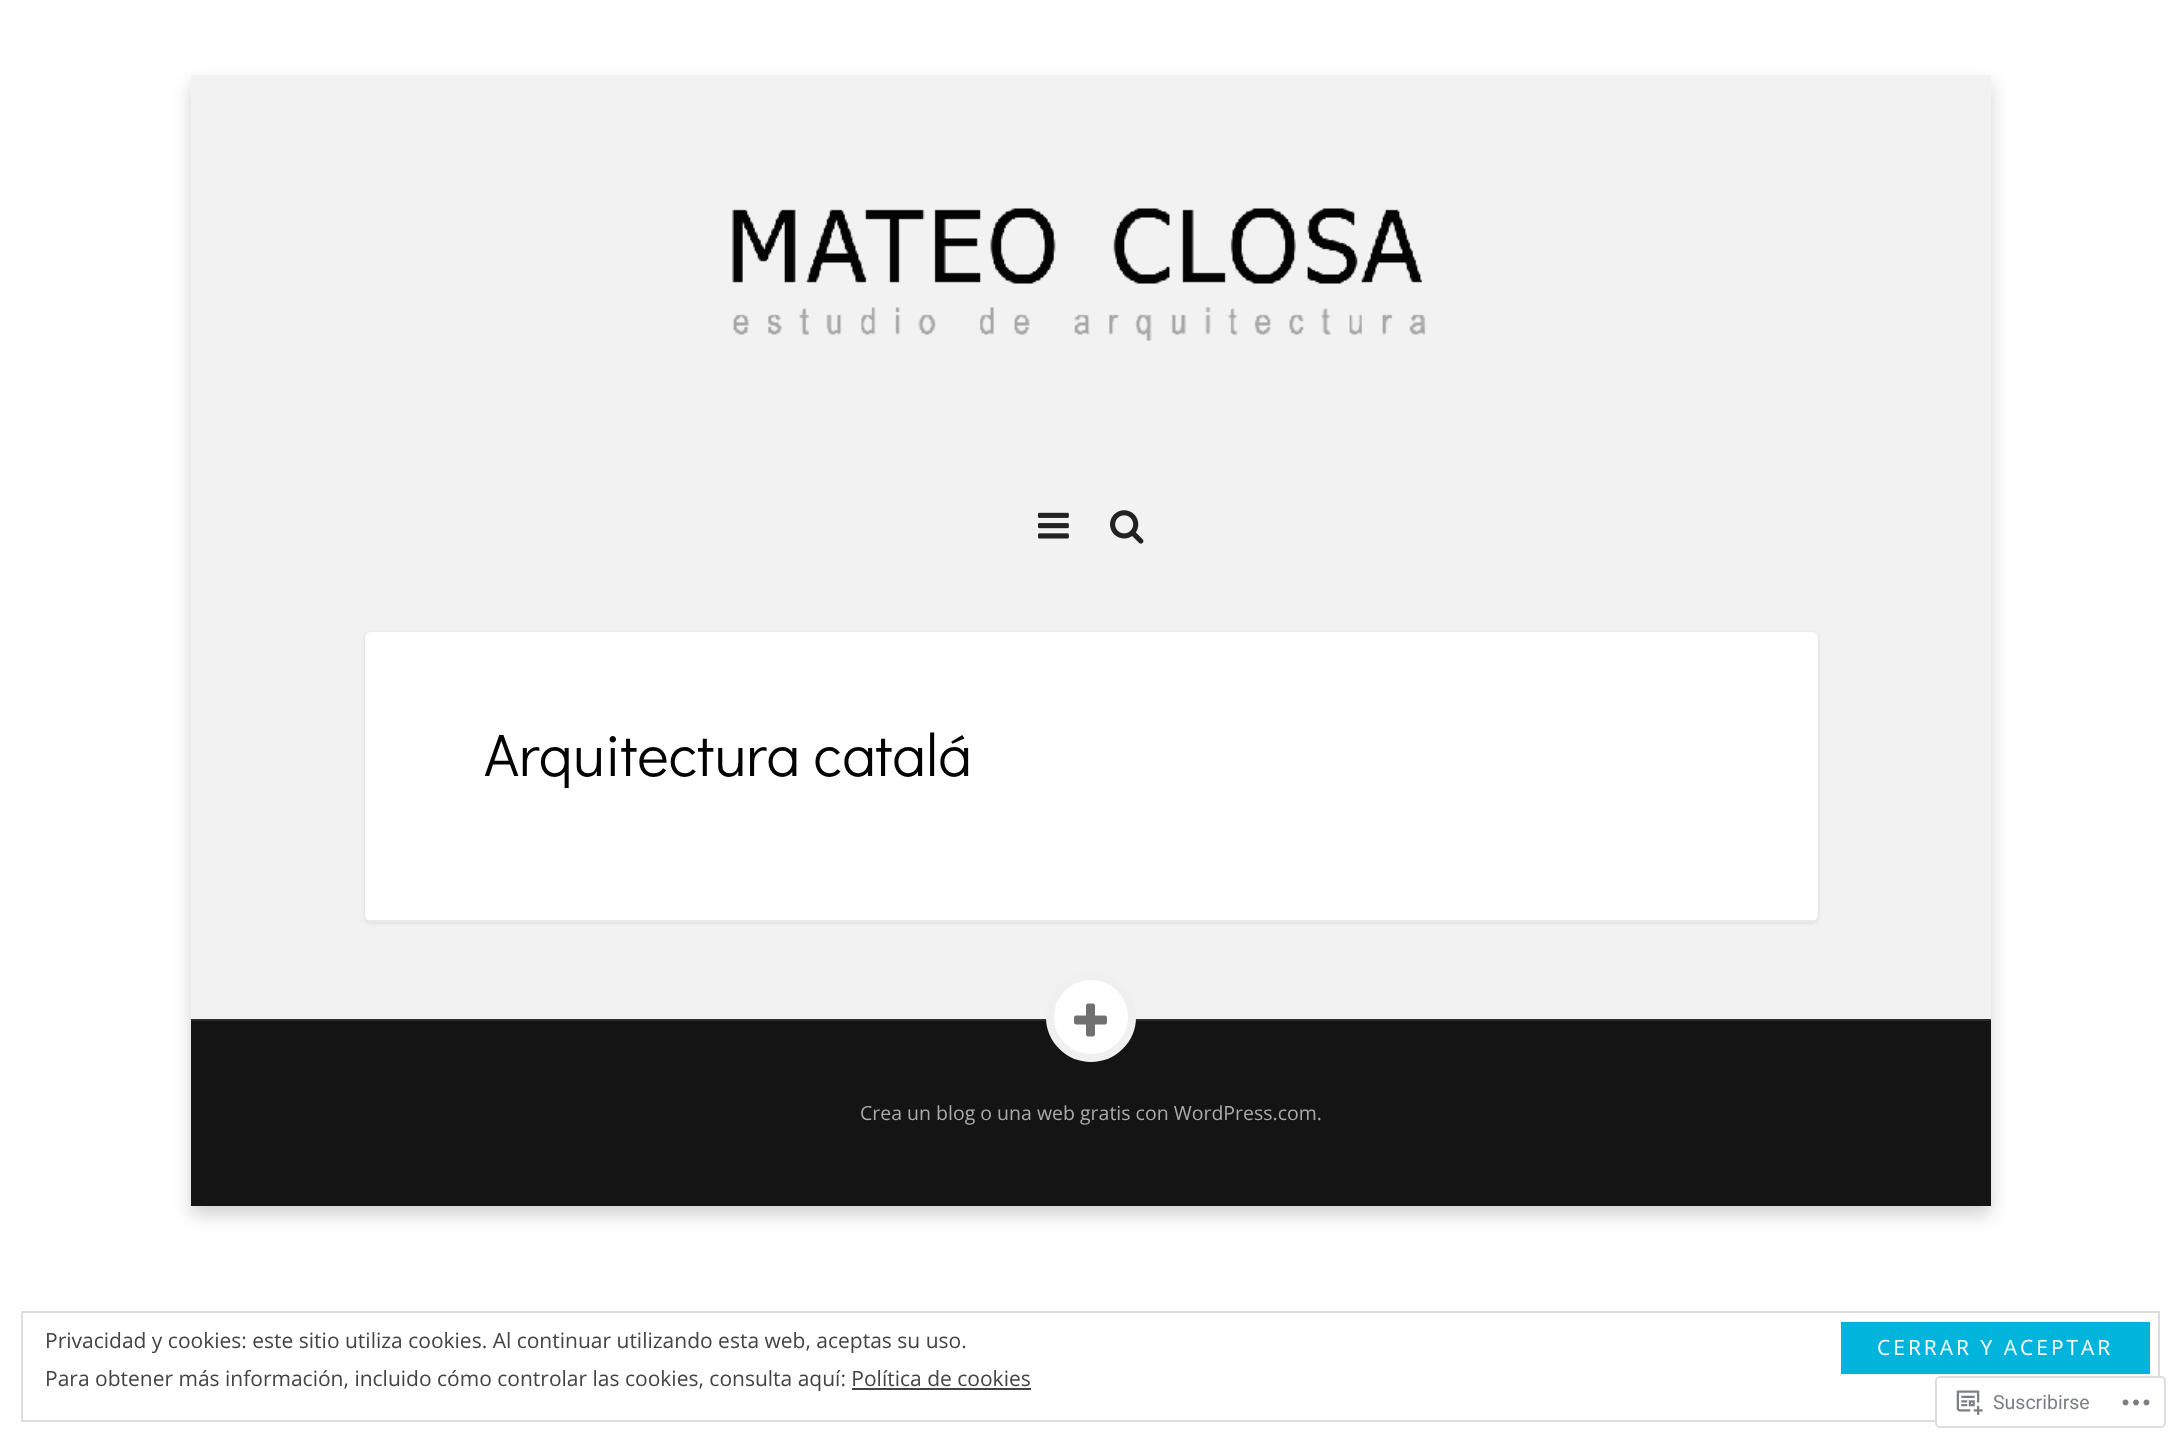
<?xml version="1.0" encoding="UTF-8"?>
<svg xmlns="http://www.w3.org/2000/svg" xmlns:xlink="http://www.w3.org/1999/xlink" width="2180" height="1443">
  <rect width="100%" height="100%" fill="#ffffff" />
  <rect x="191" y="84" width="1800" height="1131" fill="#000000" fill-opacity="0.18" filter="blur(9px)" />
  <rect x="191" y="75" width="1800" height="944" fill="#f2f2f2" />
  <image x="731" y="208" width="695" height="133" xlink:href="image1.png" />
  <image x="1038" y="512" width="31" height="27" xlink:href="image2.png" />
  <image x="1110" y="510" width="34" height="34" xlink:href="image3.png" />
  <rect x="365" y="633" width="1453" height="290" rx="6" fill="#000000" fill-opacity="0.1" filter="blur(2px)" />
  <rect x="365" y="632" width="1453" height="289" rx="6" fill="#ffffff" />
  <rect x="368" y="920" width="1447" height="2" fill="#ebebeb" />
  <rect x="191" y="1021" width="1800" height="185" fill="#141414" />
  <rect x="191" y="1019" width="1800" height="2" fill="#2c2c2c" />
  <circle cx="1091" cy="1017" r="41" fill="#ffffff" stroke="#f0f0f0" stroke-width="8" />
  <image x="1074" y="1003" width="33" height="34" xlink:href="image4.png" />
  <rect x="22" y="1312" width="2137" height="109" fill="none" stroke="#dddddd" stroke-width="2" />
  <rect x="1841" y="1322" width="309" height="52" fill="#00b4dc" />
  <rect x="852" y="1388" width="179" height="2" fill="#444444" />
  <rect x="1936" y="1377" width="229" height="50" rx="4" fill="#ffffff" fill-opacity="0.98" stroke="#dddddf" stroke-width="2" />
  <image x="1956" y="1390" width="27" height="25" xlink:href="image5.png" />
  <image x="2122" y="1399" width="28" height="7" xlink:href="image6.png" />
  <text x="484" y="776" style="font-family: Didact Gothic; font-size: 60px; fill: #020202">Arquitectura catalá</text>
  <text x="860" y="1120" style="font-family: Open Sans; font-size: 19.5px; fill: #aaaaaa">Crea un blog o una web gratis con WordPress.com.</text>
  <text x="45" y="1348" style="font-family: Open Sans; font-size: 21px; fill: #444444">Privacidad y cookies: este sitio utiliza cookies. Al continuar utilizando esta web, aceptas su uso.</text>
  <text x="1877" y="1355" style="font-family: Open Sans; font-size: 21px; letter-spacing: 3px; fill: #ffffff">CERRAR Y ACEPTAR</text>
  <text x="45" y="1386" style="font-family: Open Sans; font-size: 21px; fill: #444444">Para obtener más información, incluido cómo controlar las cookies, consulta aquí: Política de cookies</text>
  <text x="1993" y="1409" style="font-family: Roboto; font-size: 19.5px; fill: #7b7f85">Suscribirse</text>
</svg>
